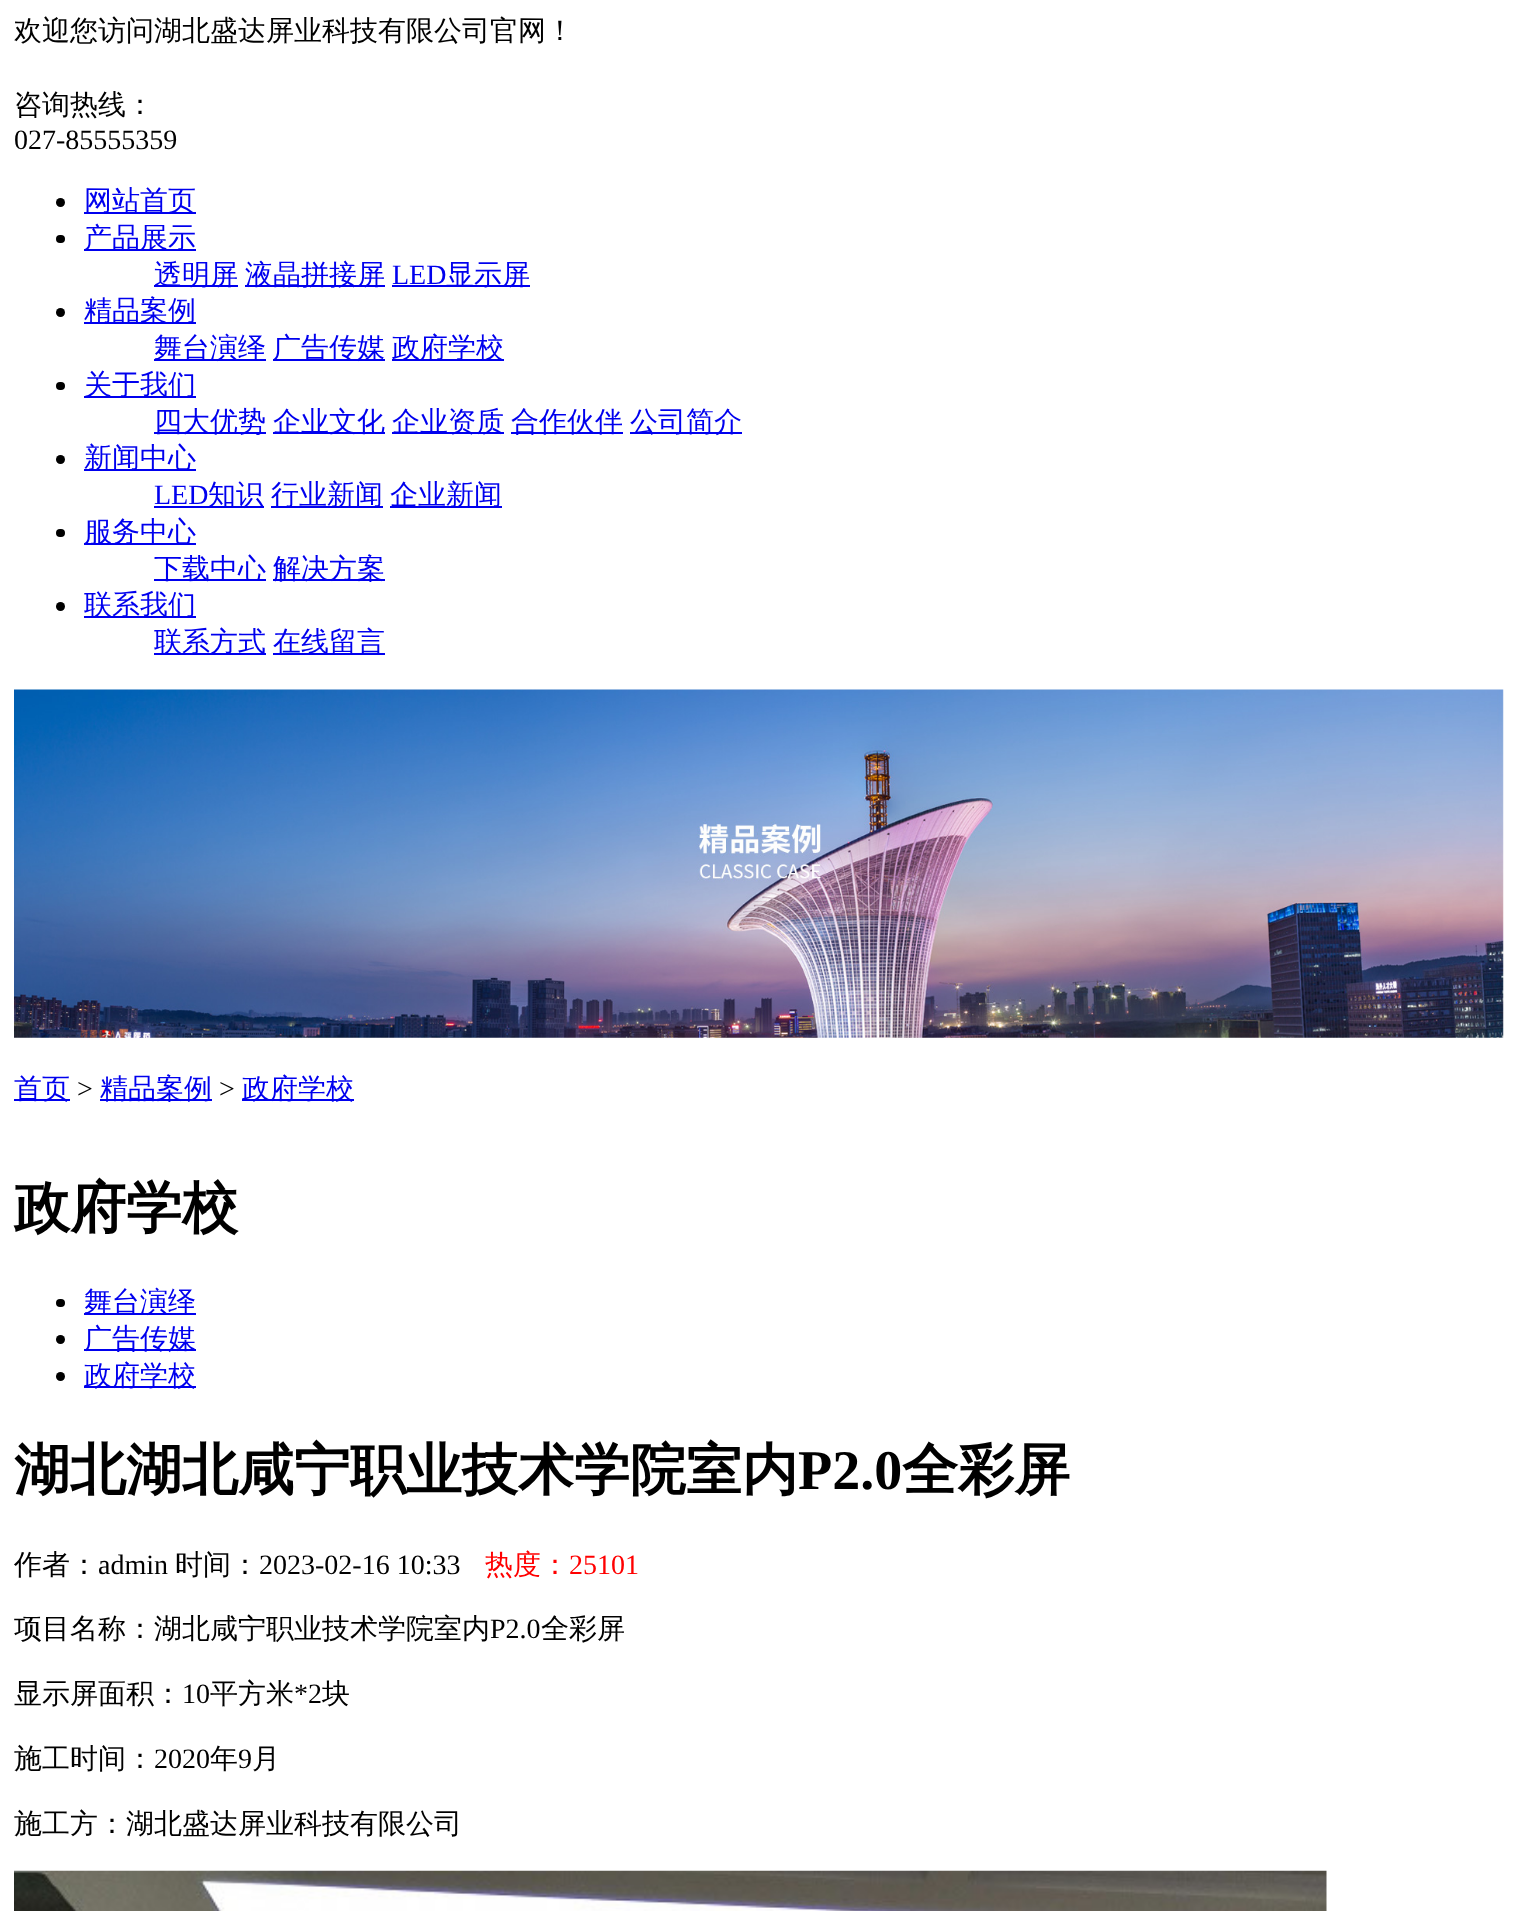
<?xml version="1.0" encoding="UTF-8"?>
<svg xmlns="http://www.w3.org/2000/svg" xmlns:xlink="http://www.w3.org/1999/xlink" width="1517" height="1911">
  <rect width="100%" height="100%" fill="#ffffff" />
  <circle cx="60.5" cy="202.5" r="4.5" fill="#000000" />
  <rect x="84" y="212" width="112" height="2" fill="#0000ee" />
  <rect x="56" y="235" width="9" height="8" rx="4" fill="#000000" />
  <rect x="84" y="249" width="112" height="2" fill="#0000ee" />
  <rect x="154" y="285" width="84" height="2" fill="#0000ee" />
  <rect x="245" y="285" width="140" height="2" fill="#0000ee" />
  <rect x="392" y="285" width="138" height="2" fill="#0000ee" />
  <circle cx="60.5" cy="312.5" r="4.5" fill="#000000" />
  <rect x="84" y="322" width="112" height="2" fill="#0000ee" />
  <rect x="154" y="359" width="112" height="2" fill="#0000ee" />
  <rect x="273" y="359" width="112" height="2" fill="#0000ee" />
  <rect x="392" y="359" width="112" height="2" fill="#0000ee" />
  <rect x="56" y="382" width="9" height="8" rx="4" fill="#000000" />
  <rect x="84" y="396" width="112" height="2" fill="#0000ee" />
  <rect x="154" y="432" width="112" height="2" fill="#0000ee" />
  <rect x="273" y="432" width="112" height="2" fill="#0000ee" />
  <rect x="392" y="432" width="112" height="2" fill="#0000ee" />
  <rect x="511" y="432" width="112" height="2" fill="#0000ee" />
  <rect x="630" y="432" width="112" height="2" fill="#0000ee" />
  <circle cx="60.5" cy="459.5" r="4.5" fill="#000000" />
  <rect x="84" y="469" width="112" height="2" fill="#0000ee" />
  <rect x="154" y="506" width="110" height="2" fill="#0000ee" />
  <rect x="271" y="506" width="112" height="2" fill="#0000ee" />
  <rect x="390" y="506" width="112" height="2" fill="#0000ee" />
  <rect x="56" y="529" width="9" height="8" rx="4" fill="#000000" />
  <rect x="84" y="543" width="112" height="2" fill="#0000ee" />
  <rect x="154" y="579" width="112" height="2" fill="#0000ee" />
  <rect x="273" y="579" width="112" height="2" fill="#0000ee" />
  <circle cx="60.5" cy="606.5" r="4.5" fill="#000000" />
  <rect x="84" y="616" width="112" height="2" fill="#0000ee" />
  <rect x="154" y="653" width="112" height="2" fill="#0000ee" />
  <rect x="273" y="653" width="112" height="2" fill="#0000ee" />
  <image x="14" y="689" width="1490" height="349" xlink:href="image1.png" />
  <rect x="14" y="1099" width="56" height="2" fill="#0000ee" />
  <rect x="100" y="1099" width="112" height="2" fill="#0000ee" />
  <rect x="242" y="1099" width="112" height="2" fill="#0000ee" />
  <rect x="56" y="1299" width="9" height="8" rx="4" fill="#000000" />
  <rect x="84" y="1313" width="112" height="2" fill="#0000ee" />
  <circle cx="60.5" cy="1339.5" r="4.5" fill="#000000" />
  <rect x="84" y="1349" width="112" height="2" fill="#0000ee" />
  <circle cx="60.5" cy="1376.5" r="4.5" fill="#000000" />
  <rect x="84" y="1386" width="112" height="2" fill="#0000ee" />
  <image x="14" y="1870" width="1313" height="41" xlink:href="image2.png" />
  <text x="14" y="40" style="font-family: WenQuanYi Zen Hei; font-size: 28px; font-weight: 500; fill: #000000">欢迎您访问湖北盛达屏业科技有限公司官网！</text>
  <text x="14" y="114" style="font-family: WenQuanYi Zen Hei; font-size: 28px; font-weight: 500; fill: #000000">咨询热线：</text>
  <text x="14" y="149" style="font-family: Liberation Serif; font-size: 28px; fill: #000000">027-85555359</text>
  <text x="84" y="210" style="font-family: WenQuanYi Zen Hei; font-size: 28px; font-weight: 500; fill: #0000ee">网站首页</text>
  <text x="84" y="247" style="font-family: WenQuanYi Zen Hei; font-size: 28px; font-weight: 500; fill: #0000ee">产品展示</text>
  <text x="154" y="284" style="font-family: WenQuanYi Zen Hei; font-size: 28px; font-weight: 500; fill: #0000ee">透明屏</text>
  <text x="245" y="284" style="font-family: WenQuanYi Zen Hei; font-size: 28px; font-weight: 500; fill: #0000ee">液晶拼接屏</text>
  <text x="392" y="284" style="font-family: Liberation Serif; font-size: 28px; fill: #0000ee">LED</text>
  <text x="446" y="284" style="font-family: WenQuanYi Zen Hei; font-size: 28px; font-weight: 500; fill: #0000ee">显示屏</text>
  <text x="84" y="320" style="font-family: WenQuanYi Zen Hei; font-size: 28px; font-weight: 500; fill: #0000ee">精品案例</text>
  <text x="154" y="357" style="font-family: WenQuanYi Zen Hei; font-size: 28px; font-weight: 500; fill: #0000ee">舞台演绎</text>
  <text x="273" y="357" style="font-family: WenQuanYi Zen Hei; font-size: 28px; font-weight: 500; fill: #0000ee">广告传媒</text>
  <text x="392" y="357" style="font-family: WenQuanYi Zen Hei; font-size: 28px; font-weight: 500; fill: #0000ee">政府学校</text>
  <text x="84" y="394" style="font-family: WenQuanYi Zen Hei; font-size: 28px; font-weight: 500; fill: #0000ee">关于我们</text>
  <text x="154" y="431" style="font-family: WenQuanYi Zen Hei; font-size: 28px; font-weight: 500; fill: #0000ee">四大优势</text>
  <text x="273" y="431" style="font-family: WenQuanYi Zen Hei; font-size: 28px; font-weight: 500; fill: #0000ee">企业文化</text>
  <text x="392" y="431" style="font-family: WenQuanYi Zen Hei; font-size: 28px; font-weight: 500; fill: #0000ee">企业资质</text>
  <text x="511" y="431" style="font-family: WenQuanYi Zen Hei; font-size: 28px; font-weight: 500; fill: #0000ee">合作伙伴</text>
  <text x="630" y="431" style="font-family: WenQuanYi Zen Hei; font-size: 28px; font-weight: 500; fill: #0000ee">公司简介</text>
  <text x="84" y="467" style="font-family: WenQuanYi Zen Hei; font-size: 28px; font-weight: 500; fill: #0000ee">新闻中心</text>
  <text x="154" y="504" style="font-family: Liberation Serif; font-size: 28px; fill: #0000ee">LED</text>
  <text x="208" y="504" style="font-family: WenQuanYi Zen Hei; font-size: 28px; font-weight: 500; fill: #0000ee">知识</text>
  <text x="271" y="504" style="font-family: WenQuanYi Zen Hei; font-size: 28px; font-weight: 500; fill: #0000ee">行业新闻</text>
  <text x="390" y="504" style="font-family: WenQuanYi Zen Hei; font-size: 28px; font-weight: 500; fill: #0000ee">企业新闻</text>
  <text x="84" y="541" style="font-family: WenQuanYi Zen Hei; font-size: 28px; font-weight: 500; fill: #0000ee">服务中心</text>
  <text x="154" y="578" style="font-family: WenQuanYi Zen Hei; font-size: 28px; font-weight: 500; fill: #0000ee">下载中心</text>
  <text x="273" y="578" style="font-family: WenQuanYi Zen Hei; font-size: 28px; font-weight: 500; fill: #0000ee">解决方案</text>
  <text x="84" y="614" style="font-family: WenQuanYi Zen Hei; font-size: 28px; font-weight: 500; fill: #0000ee">联系我们</text>
  <text x="154" y="651" style="font-family: WenQuanYi Zen Hei; font-size: 28px; font-weight: 500; fill: #0000ee">联系方式</text>
  <text x="273" y="651" style="font-family: WenQuanYi Zen Hei; font-size: 28px; font-weight: 500; fill: #0000ee">在线留言</text>
  <text x="14" y="1098" style="font-family: WenQuanYi Zen Hei; font-size: 28px; font-weight: 500; fill: #0000ee">首页</text>
  <text x="77" y="1098" style="font-family: Liberation Serif; font-size: 28px; fill: #000000">&gt;</text>
  <text x="100" y="1098" style="font-family: WenQuanYi Zen Hei; font-size: 28px; font-weight: 500; fill: #0000ee">精品案例</text>
  <text x="219" y="1098" style="font-family: Liberation Serif; font-size: 28px; fill: #000000">&gt;</text>
  <text x="242" y="1098" style="font-family: WenQuanYi Zen Hei; font-size: 28px; font-weight: 500; fill: #0000ee">政府学校</text>
  <text x="14" y="1227" style="font-family: WenQuanYi Zen Hei; font-size: 56px; font-weight: bold; fill: #000000">政府学校</text>
  <text x="84" y="1311" style="font-family: WenQuanYi Zen Hei; font-size: 28px; font-weight: 500; fill: #0000ee">舞台演绎</text>
  <text x="84" y="1348" style="font-family: WenQuanYi Zen Hei; font-size: 28px; font-weight: 500; fill: #0000ee">广告传媒</text>
  <text x="84" y="1385" style="font-family: WenQuanYi Zen Hei; font-size: 28px; font-weight: 500; fill: #0000ee">政府学校</text>
  <text x="14" y="1489" style="font-family: WenQuanYi Zen Hei; font-size: 56px; font-weight: bold; fill: #000000">湖北湖北咸宁职业技术学院室内</text>
  <text x="798" y="1489" style="font-family: Liberation Serif; font-size: 56px; font-weight: bold; fill: #000000">P2.0</text>
  <text x="902" y="1489" style="font-family: WenQuanYi Zen Hei; font-size: 56px; font-weight: bold; fill: #000000">全彩屏</text>
  <text x="14" y="1574" style="font-family: WenQuanYi Zen Hei; font-size: 28px; font-weight: 500; fill: #000000">作者：</text>
  <text x="98" y="1574" style="font-family: Liberation Serif; font-size: 28px; fill: #000000">admin</text>
  <text x="175" y="1574" style="font-family: WenQuanYi Zen Hei; font-size: 28px; font-weight: 500; fill: #000000">时间：</text>
  <text x="259" y="1574" style="font-family: Liberation Serif; font-size: 28px; fill: #000000">2023-02-16 10:33</text>
  <text x="485" y="1574" style="font-family: WenQuanYi Zen Hei; font-size: 28px; font-weight: 500; fill: #ff0000">热度：</text>
  <text x="569" y="1574" style="font-family: Liberation Serif; font-size: 28px; fill: #ff0000">25101</text>
  <text x="14" y="1638" style="font-family: WenQuanYi Zen Hei; font-size: 28px; font-weight: 500; fill: #000000">项目名称：湖北咸宁职业技术学院室内</text>
  <text x="490" y="1638" style="font-family: Liberation Serif; font-size: 28px; fill: #000000">P2.0</text>
  <text x="541" y="1638" style="font-family: WenQuanYi Zen Hei; font-size: 28px; font-weight: 500; fill: #000000">全彩屏</text>
  <text x="14" y="1703" style="font-family: WenQuanYi Zen Hei; font-size: 28px; font-weight: 500; fill: #000000">显示屏面积：</text>
  <text x="182" y="1703" style="font-family: Liberation Serif; font-size: 28px; fill: #000000">10</text>
  <text x="210" y="1703" style="font-family: WenQuanYi Zen Hei; font-size: 28px; font-weight: 500; fill: #000000">平方米</text>
  <text x="294" y="1703" style="font-family: Liberation Serif; font-size: 28px; fill: #000000">*2</text>
  <text x="322" y="1703" style="font-family: WenQuanYi Zen Hei; font-size: 28px; font-weight: 500; fill: #000000">块</text>
  <text x="14" y="1768" style="font-family: WenQuanYi Zen Hei; font-size: 28px; font-weight: 500; fill: #000000">施工时间：</text>
  <text x="154" y="1768" style="font-family: Liberation Serif; font-size: 28px; fill: #000000">2020</text>
  <text x="210" y="1768" style="font-family: WenQuanYi Zen Hei; font-size: 28px; font-weight: 500; fill: #000000">年</text>
  <text x="238" y="1768" style="font-family: Liberation Serif; font-size: 28px; fill: #000000">9</text>
  <text x="252" y="1768" style="font-family: WenQuanYi Zen Hei; font-size: 28px; font-weight: 500; fill: #000000">月</text>
  <text x="14" y="1833" style="font-family: WenQuanYi Zen Hei; font-size: 28px; font-weight: 500; fill: #000000">施工方：湖北盛达屏业科技有限公司</text>
</svg>
